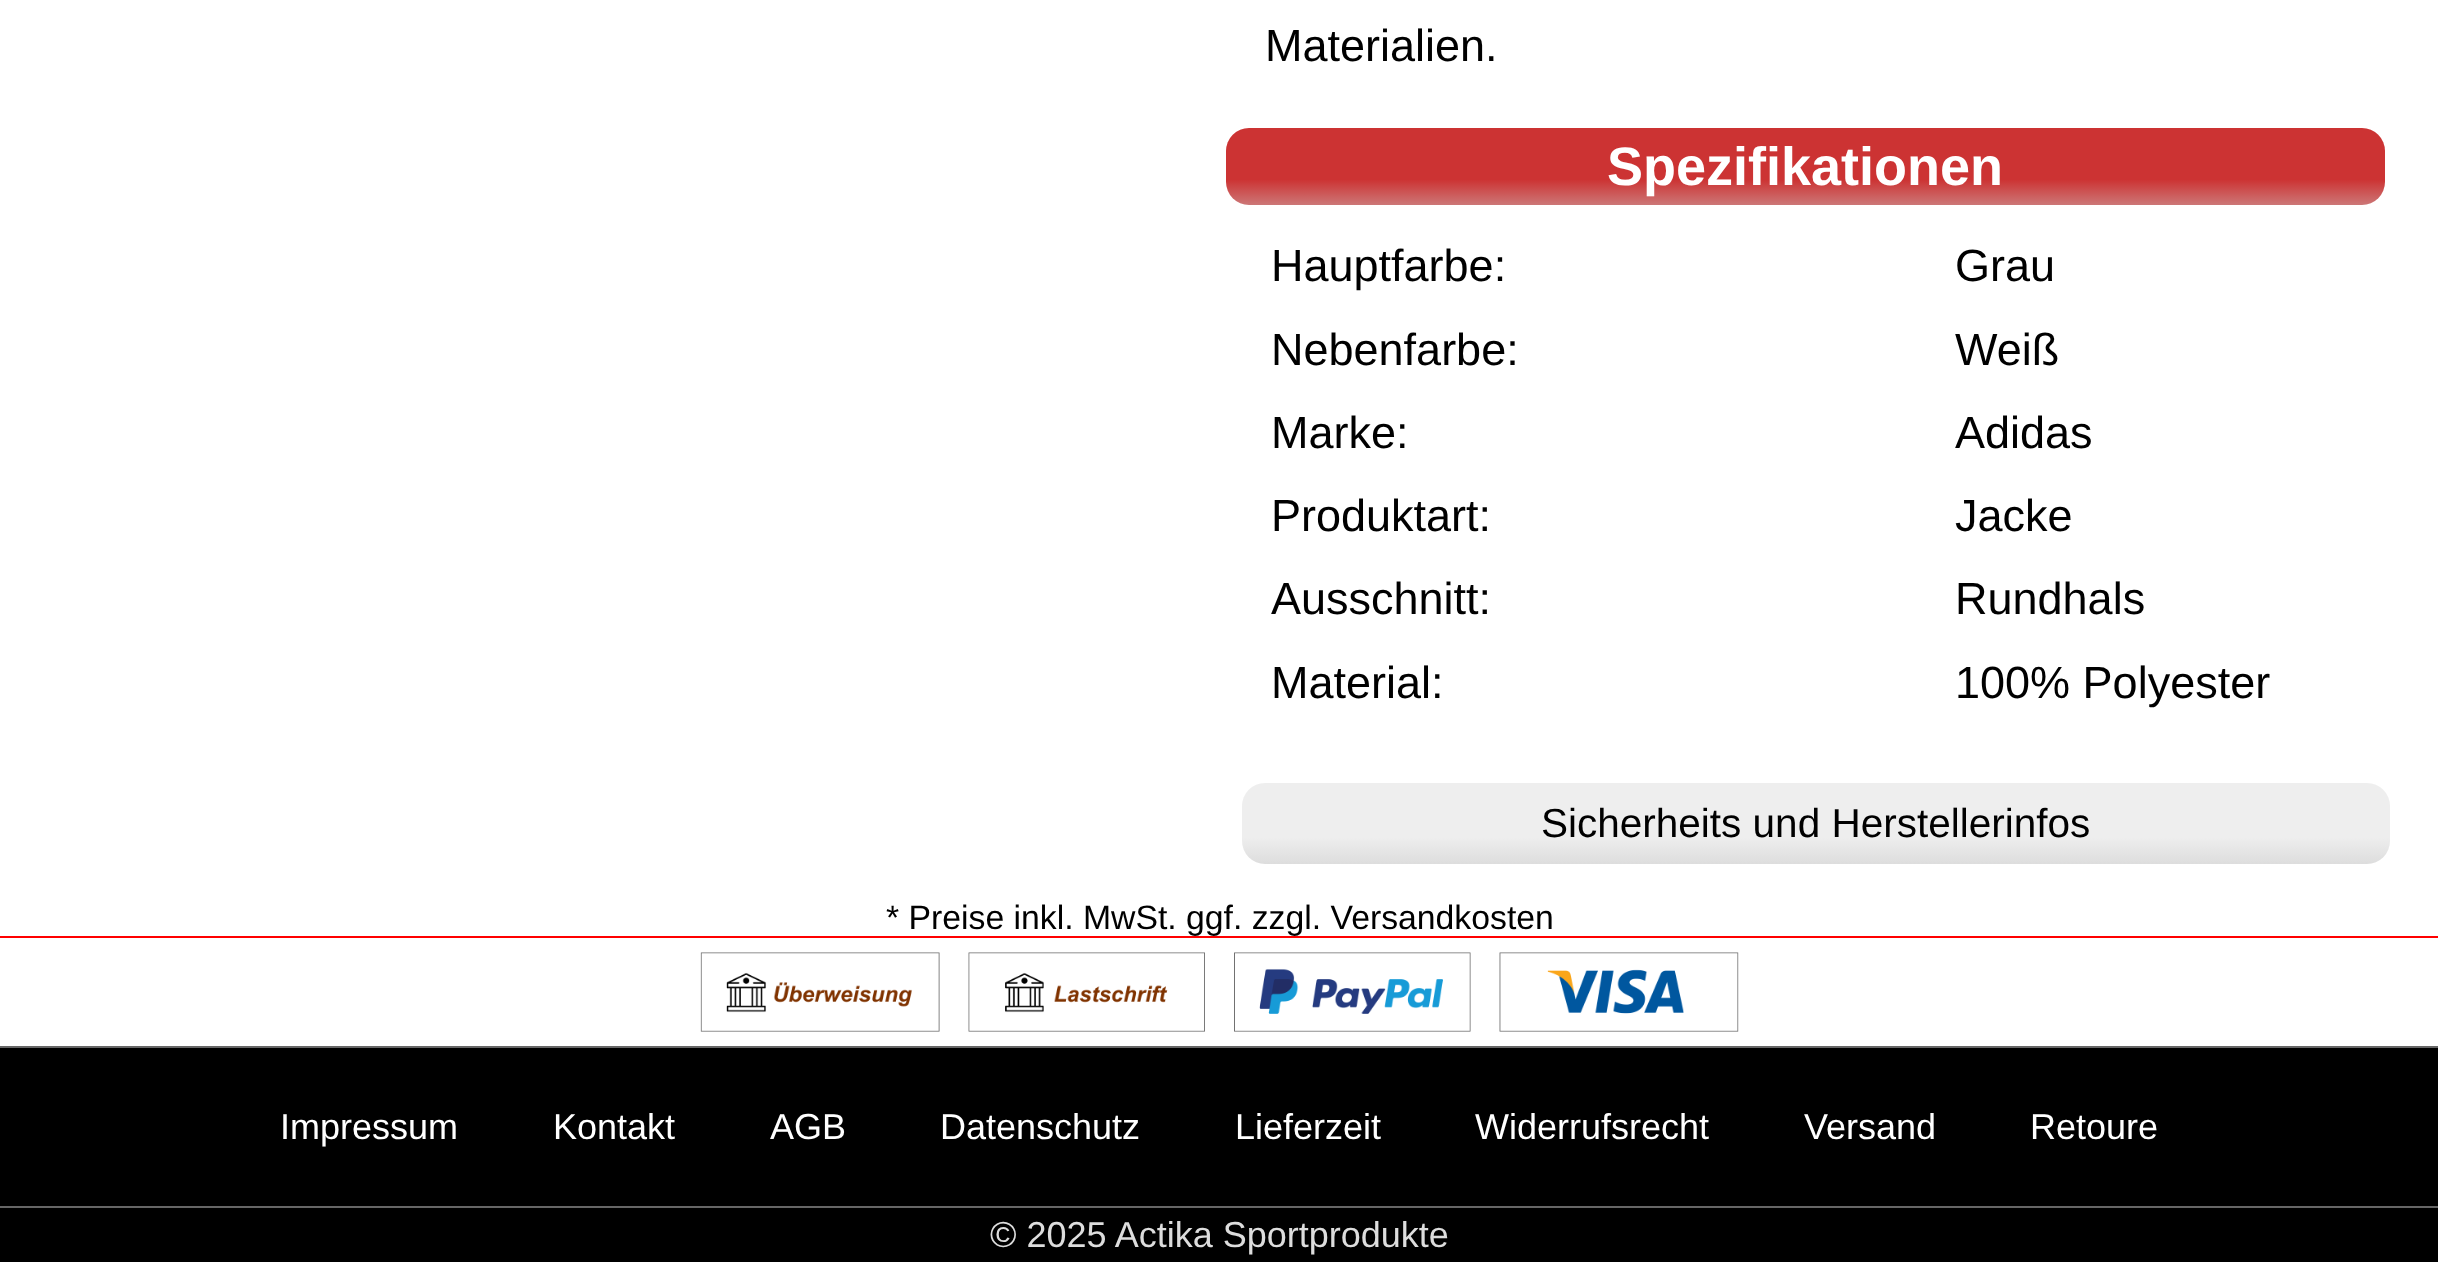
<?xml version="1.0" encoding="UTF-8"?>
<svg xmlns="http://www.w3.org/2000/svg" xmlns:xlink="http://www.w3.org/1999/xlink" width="2438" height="1262">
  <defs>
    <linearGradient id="g1" gradientUnits="userSpaceOnUse" x1="1806" y1="205" x2="1806" y2="128"><stop offset="0" stop-color="#cc7777" /><stop offset="0.33" stop-color="#cc3333" /></linearGradient>
    <linearGradient id="g2" gradientUnits="userSpaceOnUse" x1="1816" y1="864" x2="1816" y2="783"><stop offset="0" stop-color="#dddddd" /><stop offset="0.33" stop-color="#eeeeee" /></linearGradient>
  </defs>
  <rect width="100%" height="100%" fill="#ffffff" />
  <rect x="1226" y="128" width="1159" height="77" rx="23" fill="url(#g1)" />
  <rect x="1242" y="783" width="1148" height="81" rx="23" fill="url(#g2)" />
  <rect y="936" width="2438" height="2" fill="#ff0000" />
  <image x="700" y="952" width="240" height="80" xlink:href="image1.png" />
  <image x="968" y="952" width="237" height="80" xlink:href="image2.png" />
  <image x="1234" y="952" width="237" height="80" xlink:href="image3.png" />
  <image x="1499" y="952" width="240" height="80" xlink:href="image4.png" />
  <rect y="1048" width="2438" height="158" fill="#000000" />
  <rect y="1046" width="2438" height="2" fill="#666666" />
  <rect y="1208" width="2438" height="54" fill="#000000" />
  <rect y="1206" width="2438" height="2" fill="#666666" />
  <text x="1265" y="61" style="font-family: Liberation Sans; font-size: 45px; fill: #000000">Materialien.</text>
  <text x="1607" y="185" style="font-family: Liberation Sans; font-size: 54px; font-weight: bold; fill: #ffffff">Spezifikationen</text>
  <text x="1271" y="281" style="font-family: Liberation Sans; font-size: 45px; fill: #000000">Hauptfarbe:</text>
  <text x="1955" y="281" style="font-family: Liberation Sans; font-size: 45px; fill: #000000">Grau</text>
  <text x="1271" y="365" style="font-family: Liberation Sans; font-size: 45px; fill: #000000">Nebenfarbe:</text>
  <text x="1955" y="365" style="font-family: Liberation Sans; font-size: 45px; fill: #000000">Weiß</text>
  <text x="1271" y="448" style="font-family: Liberation Sans; font-size: 45px; fill: #000000">Marke:</text>
  <text x="1955" y="448" style="font-family: Liberation Sans; font-size: 45px; fill: #000000">Adidas</text>
  <text x="1271" y="531" style="font-family: Liberation Sans; font-size: 45px; fill: #000000">Produktart:</text>
  <text x="1955" y="531" style="font-family: Liberation Sans; font-size: 45px; fill: #000000">Jacke</text>
  <text x="1271" y="614" style="font-family: Liberation Sans; font-size: 45px; fill: #000000">Ausschnitt:</text>
  <text x="1955" y="614" style="font-family: Liberation Sans; font-size: 45px; fill: #000000">Rundhals</text>
  <text x="1271" y="698" style="font-family: Liberation Sans; font-size: 45px; fill: #000000">Material:</text>
  <text x="1955" y="698" style="font-family: Liberation Sans; font-size: 45px; fill: #000000">100% Polyester</text>
  <text x="1541" y="837" style="font-family: Liberation Sans; font-size: 40.5px; fill: #000000">Sicherheits und Herstellerinfos</text>
  <text x="886" y="929" style="font-family: Liberation Sans; font-size: 33.75px; fill: #000000">* Preise inkl. MwSt. ggf. zzgl. Versandkosten</text>
  <text x="280" y="1139" style="font-family: Liberation Sans; font-size: 36px; fill: #ffffff">Impressum</text>
  <text x="553" y="1139" style="font-family: Liberation Sans; font-size: 36px; fill: #ffffff">Kontakt</text>
  <text x="770" y="1139" style="font-family: Liberation Sans; font-size: 36px; fill: #ffffff">AGB</text>
  <text x="940" y="1139" style="font-family: Liberation Sans; font-size: 36px; fill: #ffffff">Datenschutz</text>
  <text x="1235" y="1139" style="font-family: Liberation Sans; font-size: 36px; fill: #ffffff">Lieferzeit</text>
  <text x="1475" y="1139" style="font-family: Liberation Sans; font-size: 36px; fill: #ffffff">Widerrufsrecht</text>
  <text x="1804" y="1139" style="font-family: Liberation Sans; font-size: 36px; fill: #ffffff">Versand</text>
  <text x="2030" y="1139" style="font-family: Liberation Sans; font-size: 36px; fill: #ffffff">Retoure</text>
  <text x="990" y="1247" style="font-family: Liberation Sans; font-size: 36px; fill: #dddddd">© 2025 Actika Sportprodukte</text>
</svg>
